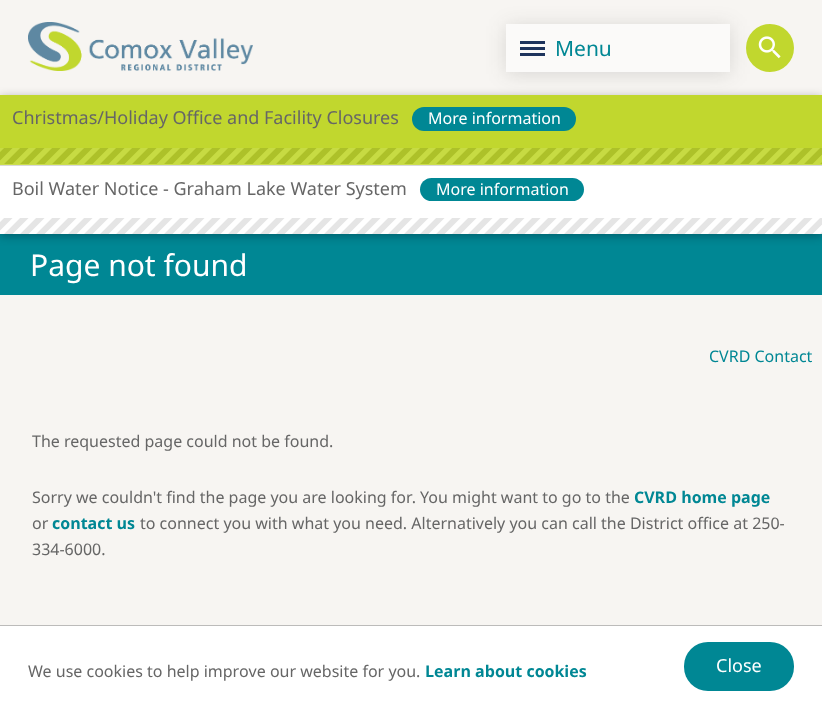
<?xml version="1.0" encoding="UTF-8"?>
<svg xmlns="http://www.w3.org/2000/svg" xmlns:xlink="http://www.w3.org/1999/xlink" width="822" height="715">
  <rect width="100%" height="100%" fill="#f7f5f2" />
  <image x="28" y="22" width="225" height="49" xlink:href="image1.png" />
  <rect y="234" width="822" height="61" fill="#008794" />
  <rect y="97" width="822" height="139" fill="#00000e" fill-opacity="0.3" filter="blur(5px)" />
  <rect y="95" width="822" height="69" fill="#c1d72e" />
  <rect x="506" y="26" width="224" height="48" fill="#252525" fill-opacity="0.15" filter="blur(10px)" />
  <rect x="506" y="24" width="224" height="48" fill="#fbfaf9" />
  <rect x="520" y="41" width="25" height="3" fill="#1e345d" />
  <rect x="520" y="47" width="25" height="3" fill="#1e345d" />
  <rect x="520" y="53" width="25" height="3" fill="#1e345d" />
  <circle cx="770" cy="48" r="24" fill="#c1d72e" />
  <image x="758" y="36" width="23" height="23" xlink:href="image2.png" />
  <rect y="166" width="822" height="68" fill="#ffffff" />
  <rect y="164" width="822" height="1" fill="#cadd4d" />
  <rect x="412" y="107" width="164" height="24" rx="12" fill="#008794" />
  <image x="0" y="148" width="822" height="16" xlink:href="image3.png" />
  <rect y="165" width="822" height="1" fill="#d9d9d9" />
  <rect x="420" y="178" width="164" height="23" rx="11.5" fill="#008794" />
  <image x="0" y="218" width="822" height="16" xlink:href="image4.png" />
  <rect y="626" width="822" height="89" fill="#ffffff" />
  <rect y="625" width="822" height="1" fill="#bcbbba" />
  <rect x="684" y="642" width="110" height="49" rx="24" fill="#008794" />
  <text x="555" y="56" style="font-family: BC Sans; font-size: 21px; fill: #008794">Menu</text>
  <text x="12" y="124" style="font-family: BC Sans; font-size: 18px; fill: #666666">Christmas/Holiday Office and Facility Closures</text>
  <text x="428" y="124" style="font-family: BC Sans; font-size: 16px; fill: #ffffff">More information</text>
  <text x="12" y="195" style="font-family: BC Sans; font-size: 18px; fill: #666666">Boil Water Notice - Graham Lake Water System</text>
  <text x="436" y="195" style="font-family: BC Sans; font-size: 16px; fill: #ffffff">More information</text>
  <text x="30" y="276" style="font-family: BC Sans; font-size: 30px; fill: #ffffff">Page not found</text>
  <text x="709" y="362" style="font-family: BC Sans; font-size: 16px; fill: #008794">CVRD Contact</text>
  <text x="32" y="447" style="font-family: BC Sans; font-size: 16px; fill: #666666">The requested page could not be found.</text>
  <text x="32" y="503" style="font-family: BC Sans; font-size: 16px; fill: #666666">Sorry we couldn't find the page you are looking for. You might want to go to the</text>
  <text x="634" y="503" style="font-family: BC Sans; font-size: 16px; font-weight: bold; fill: #008794">CVRD home page</text>
  <text x="32" y="529" style="font-family: BC Sans; font-size: 16px; fill: #666666">or</text>
  <text x="52" y="529" style="font-family: BC Sans; font-size: 16px; font-weight: bold; fill: #008794">contact us</text>
  <text x="140" y="529" style="font-family: BC Sans; font-size: 16px; fill: #666666">to connect you with what you need. Alternatively you can call the District office at 250-</text>
  <text x="32" y="555" style="font-family: BC Sans; font-size: 16px; fill: #666666">334-6000.</text>
  <text x="28" y="677" style="font-family: BC Sans; font-size: 16px; fill: #666666">We use cookies to help improve our website for you.</text>
  <text x="425" y="677" style="font-family: BC Sans; font-size: 16px; font-weight: bold; fill: #008794">Learn about cookies</text>
  <text x="716" y="672" style="font-family: BC Sans; font-size: 18px; fill: #ffffff">Close</text>
</svg>
